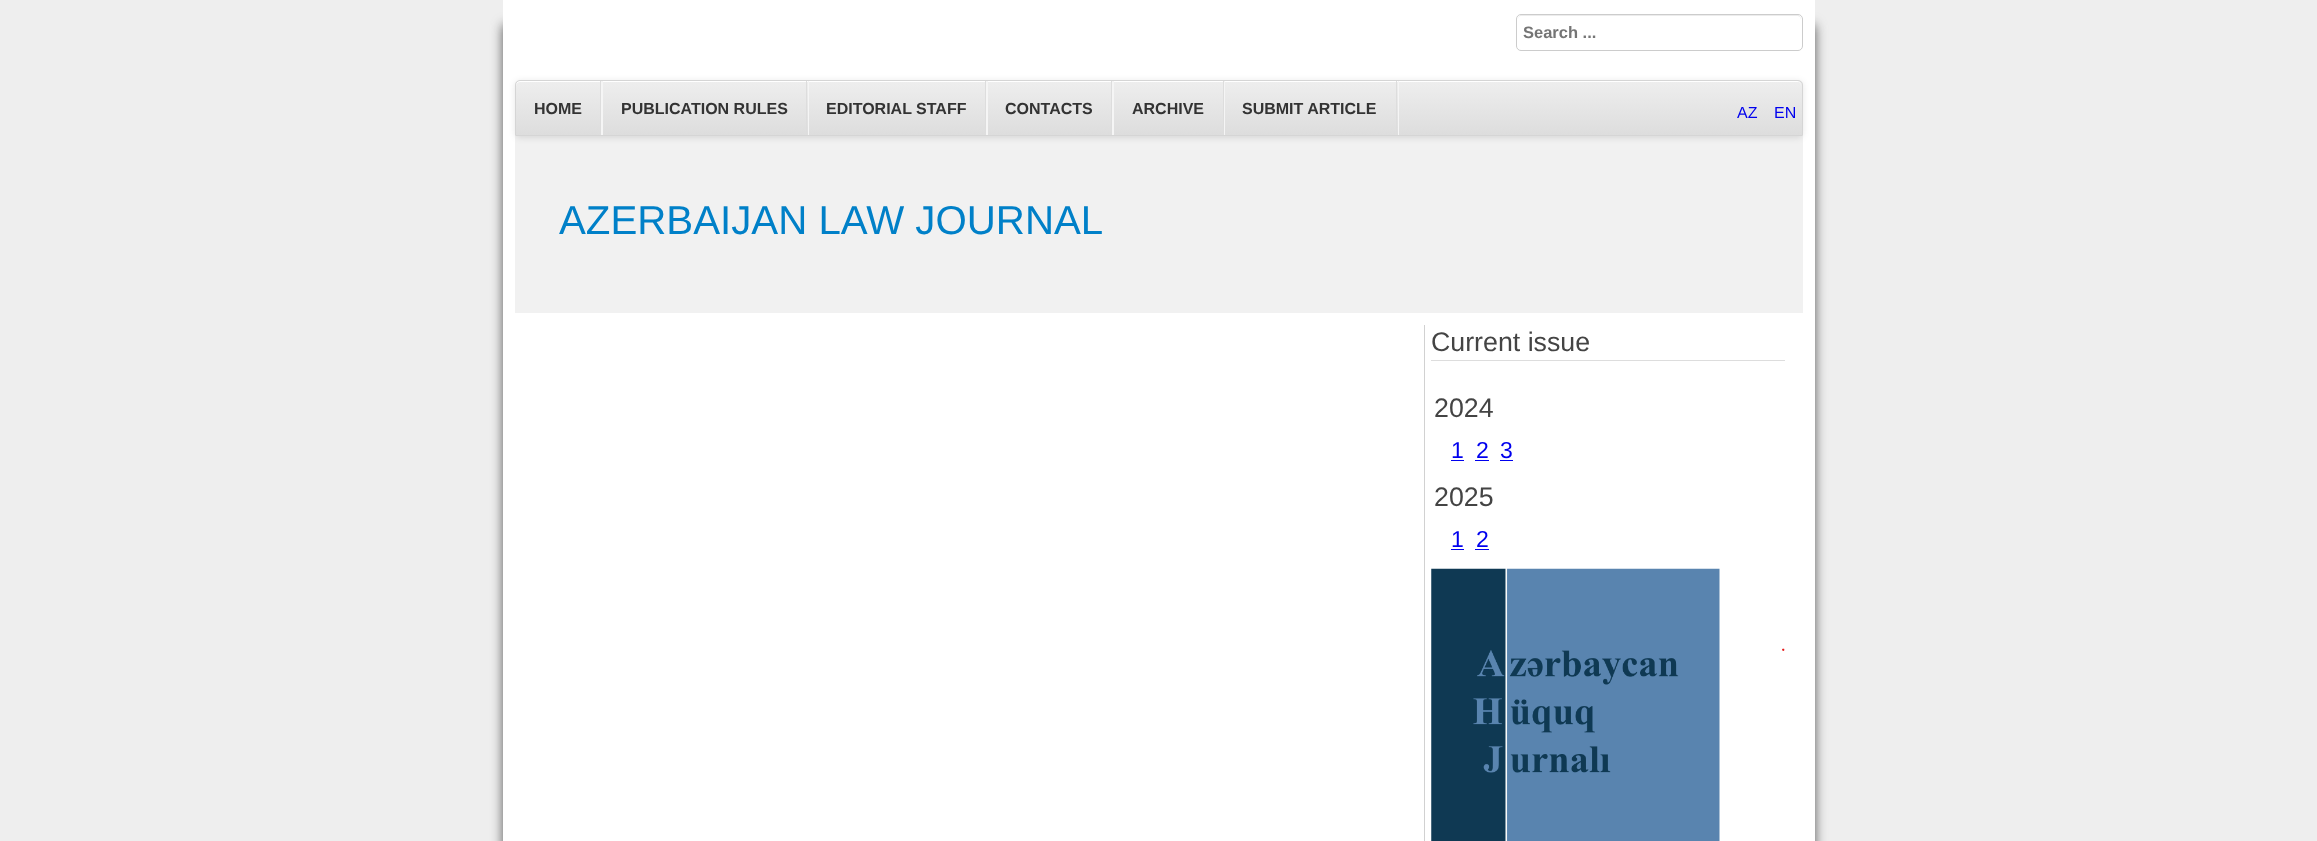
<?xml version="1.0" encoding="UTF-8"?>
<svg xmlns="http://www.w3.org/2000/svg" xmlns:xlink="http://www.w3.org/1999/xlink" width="2317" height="841">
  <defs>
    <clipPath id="clip1"><path d="M 520 80 h 1278 c 3 0 5 2 5 5 v 51 h -1288 v -51 c 0 -3 2 -5 5 -5 z" /></clipPath>
    <linearGradient id="g1" gradientUnits="userSpaceOnUse" x1="1159" y1="81" x2="1159" y2="135"><stop offset="0" stop-color="#eeeeee" /><stop offset="1" stop-color="#dddddd" /></linearGradient>
  </defs>
  <rect width="100%" height="100%" fill="#eeeeee" />
  <rect x="503" y="25" width="1312" height="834" fill="#555555" filter="blur(6px)" />
  <rect x="503" width="1312" height="841" fill="#ffffff" />
  <rect x="515" y="136" width="1288" height="177" fill="#f1f1f1" />
  <rect x="515" y="81" width="1288" height="57" rx="5" fill="#000000" fill-opacity="0.1" filter="blur(3px)" />
  <g clip-path="url(#clip1)">
    <rect x="515" y="81" width="1288" height="54" fill="url(#g1)" />
  </g>
  <path d="M 520 82 h 1278 c 2 0 3 2 3 4 v -1 c 0 -2 -2 -4 -4 -4 h -1277 c -2 0 -4 2 -4 4 v 1 c 0 -2 2 -4 4 -4 z" fill="#ffffff" />
  <path d="M 520 80.5 h 1278 c 2.5 0 4.5 2 4.5 4.5 v 50.5 h -1287 v -50.5 c 0 -2.5 2 -4.5 4.5 -4.5 z" fill="none" stroke="#d5d5d5" />
  <path d="M 521 81 h -2 h 82 v 54 h 2 v -54 z" fill="#f5f5f5" />
  <rect x="600" y="81" width="1" height="54" fill="#dddddd" />
  <path d="M 603 81 h 205 v 54 h 1 v -54 z" fill="#f5f5f5" />
  <rect x="806" y="81" width="1" height="54" fill="#dddddd" />
  <path d="M 809 81 h 177 v 54 h 2 v -54 z" fill="#f5f5f5" />
  <rect x="985" y="81" width="1" height="54" fill="#dddddd" />
  <path d="M 988 81 h 124 v 54 h 2 v -54 z" fill="#f5f5f5" />
  <rect x="1111" y="81" width="1" height="54" fill="#dddddd" />
  <path d="M 1114 81 h 110 v 54 h 1 v -54 z" fill="#f5f5f5" />
  <rect x="1223" y="81" width="1" height="54" fill="#dddddd" />
  <path d="M 1225 81 h 173 v 54 h 1 v -54 z" fill="#f5f5f5" />
  <rect x="1396" y="81" width="1" height="54" fill="#dddddd" />
  <path d="M 1521 16 h 277 l 2 1 l 1 3 c 0 -3 -1 -5 -4 -5 h -275 c -3 0 -4 2 -4 5 c 0 -2 1 -4 3 -4 z" fill="#ececec" />
  <rect x="1516.5" y="14.5" width="286" height="36" rx="4.5" fill="none" stroke="#cccccc" />
  <rect x="1424" y="325" width="1" height="516" fill="#d1d1d1" />
  <rect x="1431" y="360" width="354" height="1" fill="#dddddd" />
  <rect x="1451" y="460" width="13" height="1" fill="#0000ee" />
  <rect x="1475" y="460" width="14" height="1" fill="#0000ee" />
  <rect x="1500" y="460" width="13" height="1" fill="#0000ee" />
  <rect x="1451" y="549" width="13" height="1" fill="#0000ee" />
  <rect x="1475" y="549" width="14" height="1" fill="#0000ee" />
  <image x="1431" y="568" width="354" height="273" xlink:href="image1.png" />
  <text x="534" y="114" style="font-family: Liberation Sans; font-size: 16px; font-weight: bold; fill: #333333">HOME</text>
  <text x="621" y="114" style="font-family: Liberation Sans; font-size: 16px; font-weight: bold; fill: #333333">PUBLICATION RULES</text>
  <text x="826" y="114" style="font-family: Liberation Sans; font-size: 16px; font-weight: bold; fill: #333333">EDITORIAL STAFF</text>
  <text x="1005" y="114" style="font-family: Liberation Sans; font-size: 16px; font-weight: bold; fill: #333333">CONTACTS</text>
  <text x="1132" y="114" style="font-family: Liberation Sans; font-size: 16px; font-weight: bold; fill: #333333">ARCHIVE</text>
  <text x="1242" y="114" style="font-family: Liberation Sans; font-size: 16px; font-weight: bold; fill: #333333">SUBMIT ARTICLE</text>
  <text x="1523" y="38" style="font-family: Liberation Sans; font-size: 16.5px; font-weight: bold; fill: #757575">Search ...</text>
  <text x="1737" y="118" style="font-family: Liberation Sans; font-size: 16px; fill: #0000ee">AZ</text>
  <text x="1774" y="118" style="font-family: Liberation Sans; font-size: 16px; fill: #0000ee">EN</text>
  <text x="559" y="234" style="font-family: Liberation Sans; font-size: 40.25px; fill: #0080c8">AZERBAIJAN LAW JOURNAL</text>
  <text x="1431" y="351" style="font-family: Liberation Sans; font-size: 26.75px; fill: #444444">Current issue</text>
  <text x="1434" y="417" style="font-family: Liberation Sans; font-size: 26.75px; fill: #444444">2024</text>
  <text x="1451" y="458" style="font-family: Liberation Sans; font-size: 23px; fill: #0000ee">1</text>
  <text x="1476" y="458" style="font-family: Liberation Sans; font-size: 23px; fill: #0000ee">2</text>
  <text x="1500" y="458" style="font-family: Liberation Sans; font-size: 23px; fill: #0000ee">3</text>
  <text x="1434" y="506" style="font-family: Liberation Sans; font-size: 26.75px; fill: #444444">2025</text>
  <text x="1451" y="547" style="font-family: Liberation Sans; font-size: 23px; fill: #0000ee">1</text>
  <text x="1476" y="547" style="font-family: Liberation Sans; font-size: 23px; fill: #0000ee">2</text>
</svg>
